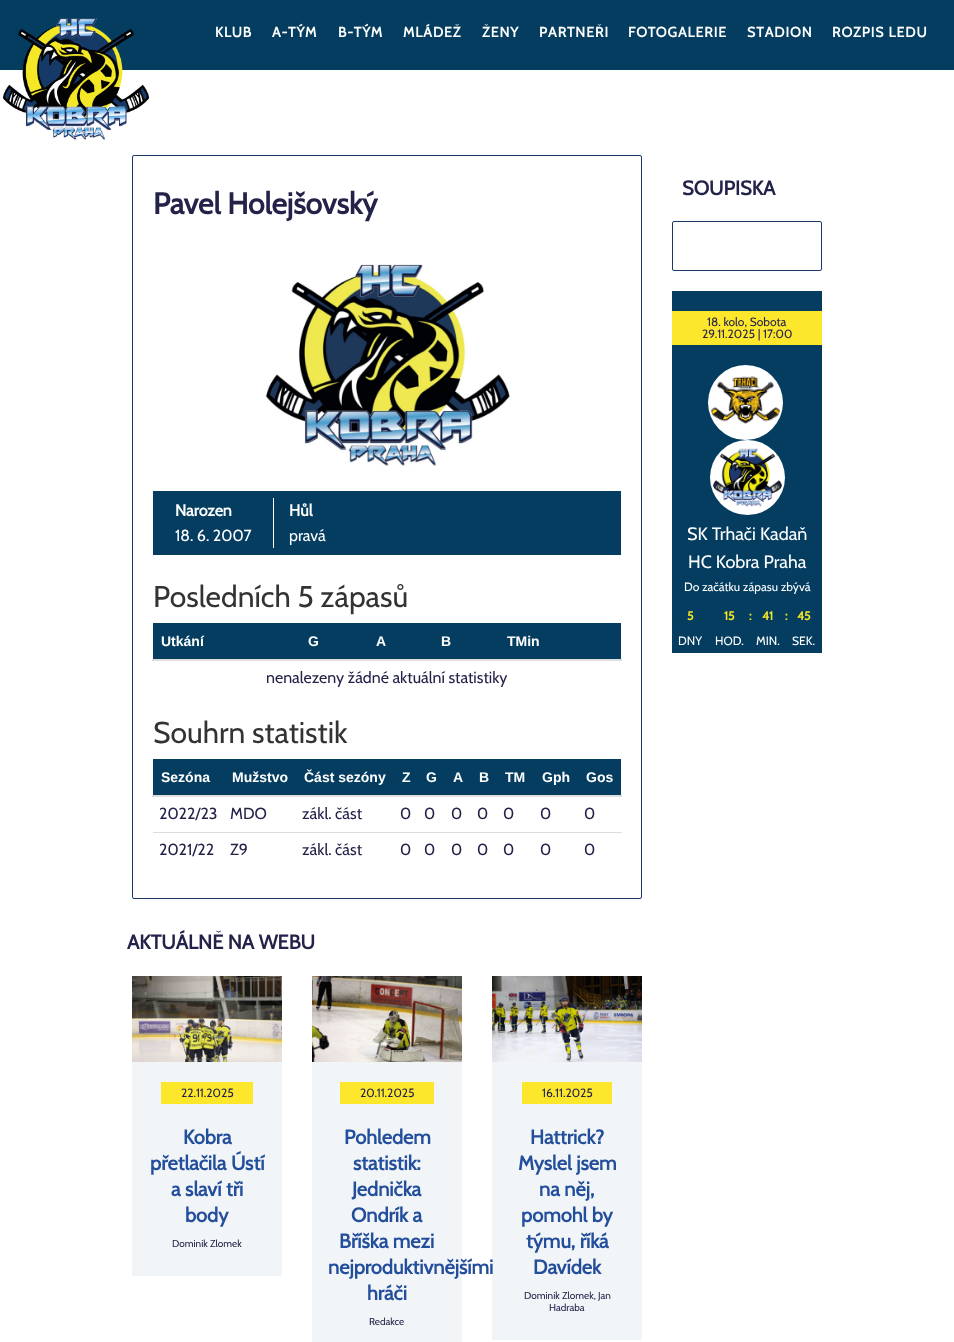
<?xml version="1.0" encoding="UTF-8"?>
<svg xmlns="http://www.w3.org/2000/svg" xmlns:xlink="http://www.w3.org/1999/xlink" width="954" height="1342">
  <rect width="100%" height="100%" fill="#ffffff" />
  <rect width="954" height="70" fill="#043d60" />
  <image x="3" y="18" width="147" height="122" xlink:href="image1.png" />
  <rect x="132.5" y="155.5" width="509" height="743" rx="1.5" fill="none" stroke="#1b3967" />
  <image x="266" y="264" width="244" height="202" xlink:href="image2.png" />
  <rect x="153" y="491" width="468" height="64" fill="#043d60" />
  <rect x="273" y="498" width="1" height="50" fill="#ffffff" />
  <rect x="153" y="623" width="468" height="36" fill="#043d60" />
  <rect x="152" y="659" width="470" height="2" fill="#dddddd" />
  <rect x="153" y="759" width="468" height="36" fill="#043d60" />
  <rect x="152" y="795" width="470" height="2" fill="#dddddd" />
  <rect x="153" y="832" width="469" height="1" fill="#dddddd" />
  <rect x="672.5" y="221.5" width="149" height="49" rx="1.5" fill="none" stroke="#1b3967" />
  <rect x="672" y="291" width="150" height="362" fill="#043d60" />
  <rect x="672" y="311" width="150" height="34" fill="#fce72d" />
  <circle cx="745.5" cy="402.5" r="37.5" fill="#ffffff" />
  <image x="711" y="376" width="69" height="48" xlink:href="image3.png" />
  <circle cx="747.5" cy="477.5" r="37.5" fill="#ffffff" />
  <image x="713" y="448" width="69" height="59" xlink:href="image4.png" />
  <image x="132" y="976" width="150" height="86" xlink:href="image5.png" />
  <rect x="132" y="1062" width="150" height="214" fill="#f2f5f8" />
  <rect x="161" y="1082" width="92" height="22" fill="#fce72d" />
  <image x="312" y="976" width="150" height="86" xlink:href="image6.png" />
  <rect x="312" y="1062" width="150" height="280" fill="#f2f5f8" />
  <rect x="340" y="1082" width="94" height="22" fill="#fce72d" />
  <image x="492" y="976" width="150" height="86" xlink:href="image7.png" />
  <rect x="492" y="1062" width="150" height="278" fill="#f2f5f8" />
  <rect x="522" y="1082" width="90" height="22" fill="#fce72d" />
  <text x="215" y="37" style="font-family: Cabin; font-size: 14px; font-weight: bold; letter-spacing: 1px; fill: #ffffff">KLUB</text>
  <text x="272" y="37" style="font-family: Cabin; font-size: 14px; font-weight: bold; letter-spacing: 1px; fill: #ffffff">A-TÝM</text>
  <text x="338" y="37" style="font-family: Cabin; font-size: 14px; font-weight: bold; letter-spacing: 1px; fill: #ffffff">B-TÝM</text>
  <text x="403" y="37" style="font-family: Cabin; font-size: 14px; font-weight: bold; letter-spacing: 1px; fill: #ffffff">MLÁDEŽ</text>
  <text x="482" y="37" style="font-family: Cabin; font-size: 14px; font-weight: bold; letter-spacing: 1px; fill: #ffffff">ŽENY</text>
  <text x="539" y="37" style="font-family: Cabin; font-size: 14px; font-weight: bold; letter-spacing: 1px; fill: #ffffff">PARTNEŘI</text>
  <text x="628" y="37" style="font-family: Cabin; font-size: 14px; font-weight: bold; letter-spacing: 1px; fill: #ffffff">FOTOGALERIE</text>
  <text x="747" y="37" style="font-family: Cabin; font-size: 14px; font-weight: bold; letter-spacing: 1px; fill: #ffffff">STADION</text>
  <text x="832" y="37" style="font-family: Cabin; font-size: 14px; font-weight: bold; letter-spacing: 1px; fill: #ffffff">ROZPIS LEDU</text>
  <text x="153" y="214" style="font-family: Cabin; font-size: 30px; font-weight: bold; fill: #232249">Pavel Holejšovský</text>
  <text x="175" y="516" style="font-family: Cabin; font-size: 16px; font-weight: bold; fill: #ffffff">Narozen</text>
  <text x="175" y="541" style="font-family: Cabin; font-size: 16px; fill: #ffffff">18. 6. 2007</text>
  <text x="289" y="516" style="font-family: Cabin; font-size: 16px; font-weight: bold; fill: #ffffff">Hůl</text>
  <text x="289" y="541" style="font-family: Cabin; font-size: 16px; fill: #ffffff">pravá</text>
  <text x="153" y="607" style="font-family: Cabin; font-size: 30px; fill: #333333">Posledních 5 zápasů</text>
  <text x="161" y="646" style="font-family: Liberation Sans; font-size: 14px; font-weight: bold; fill: #ffffff">Utkání</text>
  <text x="308" y="646" style="font-family: Liberation Sans; font-size: 14px; font-weight: bold; fill: #ffffff">G</text>
  <text x="376" y="646" style="font-family: Liberation Sans; font-size: 14px; font-weight: bold; fill: #ffffff">A</text>
  <text x="441" y="646" style="font-family: Liberation Sans; font-size: 14px; font-weight: bold; fill: #ffffff">B</text>
  <text x="507" y="646" style="font-family: Liberation Sans; font-size: 14px; font-weight: bold; fill: #ffffff">TMin</text>
  <text x="266" y="683" style="font-family: Cabin; font-size: 16px; fill: #232249">nenalezeny žádné aktuální statistiky</text>
  <text x="153" y="743" style="font-family: Cabin; font-size: 30px; fill: #333333">Souhrn statistik</text>
  <text x="161" y="782" style="font-family: Liberation Sans; font-size: 14px; font-weight: bold; fill: #ffffff">Sezóna</text>
  <text x="232" y="782" style="font-family: Liberation Sans; font-size: 14px; font-weight: bold; fill: #ffffff">Mužstvo</text>
  <text x="304" y="782" style="font-family: Liberation Sans; font-size: 14px; font-weight: bold; fill: #ffffff">Část sezóny</text>
  <text x="402" y="782" style="font-family: Liberation Sans; font-size: 14px; font-weight: bold; fill: #ffffff">Z</text>
  <text x="426" y="782" style="font-family: Liberation Sans; font-size: 14px; font-weight: bold; fill: #ffffff">G</text>
  <text x="453" y="782" style="font-family: Liberation Sans; font-size: 14px; font-weight: bold; fill: #ffffff">A</text>
  <text x="479" y="782" style="font-family: Liberation Sans; font-size: 14px; font-weight: bold; fill: #ffffff">B</text>
  <text x="505" y="782" style="font-family: Liberation Sans; font-size: 14px; font-weight: bold; fill: #ffffff">TM</text>
  <text x="542" y="782" style="font-family: Liberation Sans; font-size: 14px; font-weight: bold; fill: #ffffff">Gph</text>
  <text x="586" y="782" style="font-family: Liberation Sans; font-size: 14px; font-weight: bold; fill: #ffffff">Gos</text>
  <text x="159" y="819" style="font-family: Cabin; font-size: 16px; fill: #232249">2022/23</text>
  <text x="230" y="819" style="font-family: Cabin; font-size: 16px; fill: #232249">MDO</text>
  <text x="302" y="819" style="font-family: Cabin; font-size: 16px; fill: #232249">zákl. část</text>
  <text x="400" y="819" style="font-family: Cabin; font-size: 16px; fill: #232249">0</text>
  <text x="424" y="819" style="font-family: Cabin; font-size: 16px; fill: #232249">0</text>
  <text x="451" y="819" style="font-family: Cabin; font-size: 16px; fill: #232249">0</text>
  <text x="477" y="819" style="font-family: Cabin; font-size: 16px; fill: #232249">0</text>
  <text x="503" y="819" style="font-family: Cabin; font-size: 16px; fill: #232249">0</text>
  <text x="540" y="819" style="font-family: Cabin; font-size: 16px; fill: #232249">0</text>
  <text x="584" y="819" style="font-family: Cabin; font-size: 16px; fill: #232249">0</text>
  <text x="159" y="855" style="font-family: Cabin; font-size: 16px; fill: #232249">2021/22</text>
  <text x="230" y="855" style="font-family: Cabin; font-size: 16px; fill: #232249">Z9</text>
  <text x="302" y="855" style="font-family: Cabin; font-size: 16px; fill: #232249">zákl. část</text>
  <text x="400" y="855" style="font-family: Cabin; font-size: 16px; fill: #232249">0</text>
  <text x="424" y="855" style="font-family: Cabin; font-size: 16px; fill: #232249">0</text>
  <text x="451" y="855" style="font-family: Cabin; font-size: 16px; fill: #232249">0</text>
  <text x="477" y="855" style="font-family: Cabin; font-size: 16px; fill: #232249">0</text>
  <text x="503" y="855" style="font-family: Cabin; font-size: 16px; fill: #232249">0</text>
  <text x="540" y="855" style="font-family: Cabin; font-size: 16px; fill: #232249">0</text>
  <text x="584" y="855" style="font-family: Cabin; font-size: 16px; fill: #232249">0</text>
  <text x="682" y="195" style="font-family: Cabin; font-size: 20px; font-weight: bold; fill: #232249">SOUPISKA</text>
  <text x="707" y="326" style="font-family: Cabin; font-size: 12px; fill: #232249">18. kolo, Sobota</text>
  <text x="702" y="338" style="font-family: Cabin; font-size: 12px; fill: #232249">29.11.2025 | 17:00</text>
  <text x="687" y="540" style="font-family: Cabin; font-size: 18px; fill: #ffffff">SK Trhači Kadaň</text>
  <text x="688" y="568" style="font-family: Cabin; font-size: 18px; fill: #ffffff">HC Kobra Praha</text>
  <text x="684" y="591" style="font-family: Cabin; font-size: 12px; fill: #ffffff">Do začátku zápasu zbývá</text>
  <text x="687" y="620" style="font-family: Cabin; font-size: 12px; font-weight: bold; fill: #f6e724">5</text>
  <text x="724" y="620" style="font-family: Cabin; font-size: 12px; font-weight: bold; fill: #f6e724">15</text>
  <text x="749" y="620" style="font-family: Cabin; font-size: 12px; font-weight: bold; fill: #f6e724">:</text>
  <text x="762" y="620" style="font-family: Cabin; font-size: 12px; font-weight: bold; fill: #f6e724">41</text>
  <text x="785" y="620" style="font-family: Cabin; font-size: 12px; font-weight: bold; fill: #f6e724">:</text>
  <text x="797" y="620" style="font-family: Cabin; font-size: 12px; font-weight: bold; fill: #f6e724">45</text>
  <text x="678" y="645" style="font-family: Cabin; font-size: 12px; fill: #ffffff">DNY</text>
  <text x="715" y="645" style="font-family: Cabin; font-size: 12px; fill: #ffffff">HOD.</text>
  <text x="756" y="645" style="font-family: Cabin; font-size: 12px; fill: #ffffff">MIN.</text>
  <text x="792" y="645" style="font-family: Cabin; font-size: 12px; fill: #ffffff">SEK.</text>
  <text x="127" y="949" style="font-family: Cabin; font-size: 20px; font-weight: bold; fill: #232249">AKTUÁLNĚ NA WEBU</text>
  <text x="181" y="1097" style="font-family: Cabin; font-size: 12px; fill: #232249">22.11.2025</text>
  <text x="183" y="1144" style="font-family: Cabin; font-size: 20px; font-weight: bold; fill: #234e9c">Kobra</text>
  <text x="150" y="1170" style="font-family: Cabin; font-size: 20px; font-weight: bold; fill: #234e9c">přetlačila Ústí</text>
  <text x="171" y="1196" style="font-family: Cabin; font-size: 20px; font-weight: bold; fill: #234e9c">a slaví tři</text>
  <text x="185" y="1222" style="font-family: Cabin; font-size: 20px; font-weight: bold; fill: #234e9c">body</text>
  <text x="172" y="1247" style="font-family: Cabin; font-size: 10px; fill: #232249">Dominik Zlomek</text>
  <text x="360" y="1097" style="font-family: Cabin; font-size: 12px; fill: #232249">20.11.2025</text>
  <text x="344" y="1144" style="font-family: Cabin; font-size: 20px; font-weight: bold; fill: #234e9c">Pohledem</text>
  <text x="353" y="1170" style="font-family: Cabin; font-size: 20px; font-weight: bold; fill: #234e9c">statistik:</text>
  <text x="352" y="1196" style="font-family: Cabin; font-size: 20px; font-weight: bold; fill: #234e9c">Jednička</text>
  <text x="351" y="1222" style="font-family: Cabin; font-size: 20px; font-weight: bold; fill: #234e9c">Ondrík a</text>
  <text x="339" y="1248" style="font-family: Cabin; font-size: 20px; font-weight: bold; fill: #234e9c">Bříška mezi</text>
  <text x="328" y="1274" style="font-family: Cabin; font-size: 20px; font-weight: bold; fill: #234e9c">nejproduktivnějšími</text>
  <text x="367" y="1300" style="font-family: Cabin; font-size: 20px; font-weight: bold; fill: #234e9c">hráči</text>
  <text x="369" y="1325" style="font-family: Cabin; font-size: 10px; fill: #232249">Redakce</text>
  <text x="542" y="1097" style="font-family: Cabin; font-size: 12px; fill: #232249">16.11.2025</text>
  <text x="530" y="1144" style="font-family: Cabin; font-size: 20px; font-weight: bold; fill: #234e9c">Hattrick?</text>
  <text x="518" y="1170" style="font-family: Cabin; font-size: 20px; font-weight: bold; fill: #234e9c">Myslel jsem</text>
  <text x="539" y="1196" style="font-family: Cabin; font-size: 20px; font-weight: bold; fill: #234e9c">na něj,</text>
  <text x="521" y="1222" style="font-family: Cabin; font-size: 20px; font-weight: bold; fill: #234e9c">pomohl by</text>
  <text x="526" y="1248" style="font-family: Cabin; font-size: 20px; font-weight: bold; fill: #234e9c">týmu, říká</text>
  <text x="533" y="1274" style="font-family: Cabin; font-size: 20px; font-weight: bold; fill: #234e9c">Davídek</text>
  <text x="524" y="1299" style="font-family: Cabin; font-size: 10px; fill: #232249">Dominik Zlomek, Jan</text>
  <text x="549" y="1311" style="font-family: Cabin; font-size: 10px; fill: #232249">Hadraba</text>
</svg>
